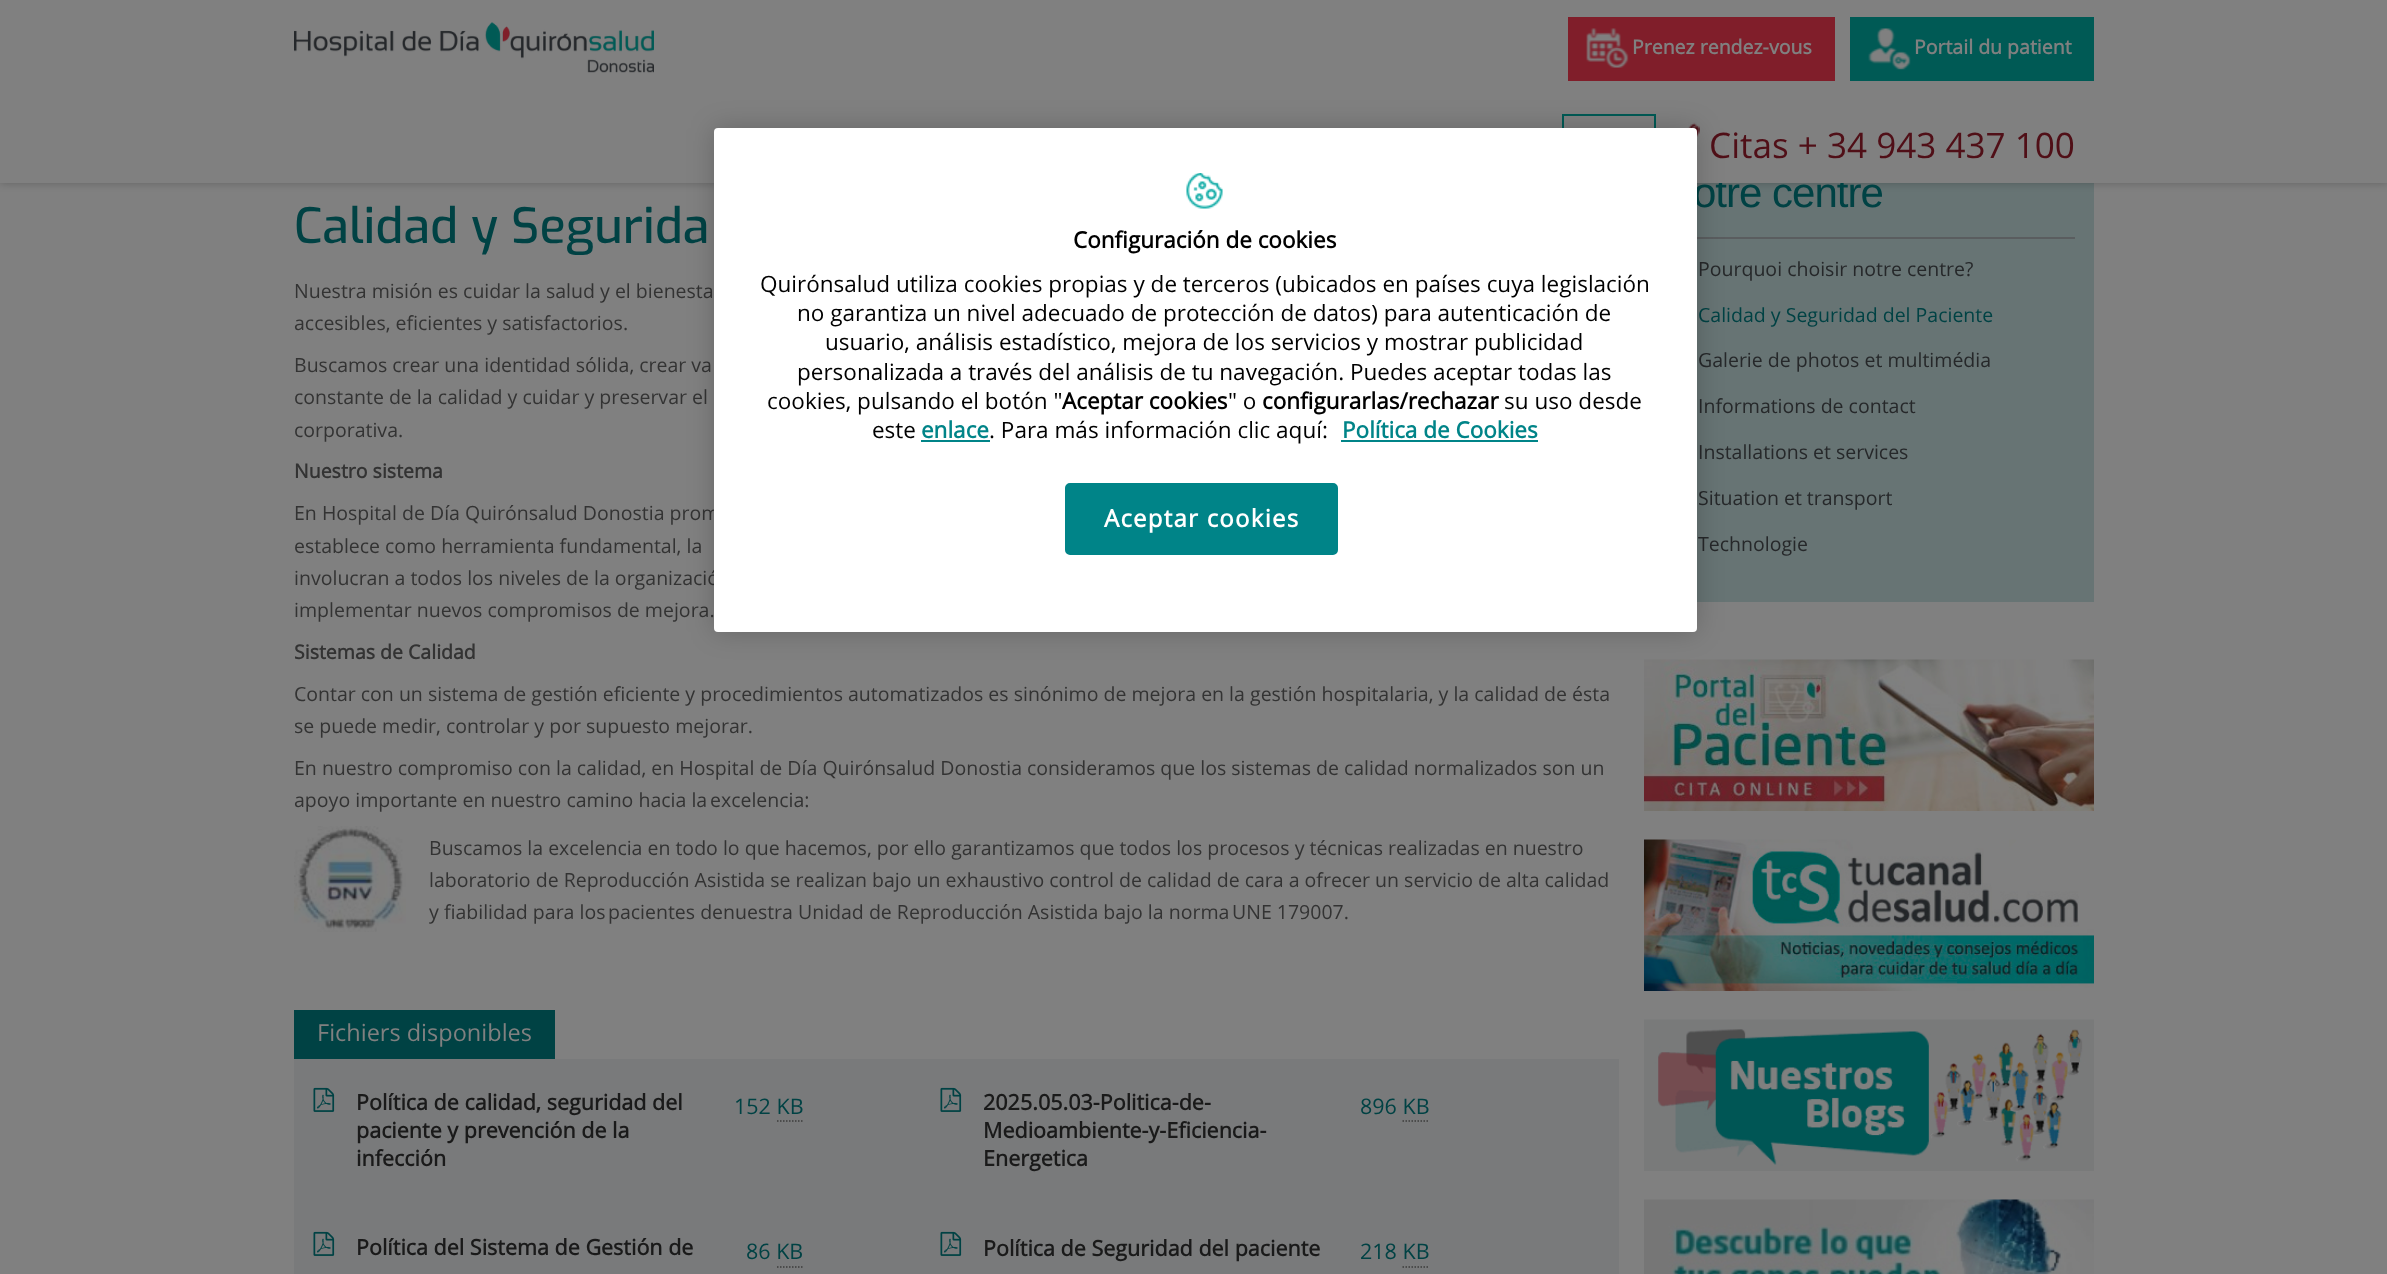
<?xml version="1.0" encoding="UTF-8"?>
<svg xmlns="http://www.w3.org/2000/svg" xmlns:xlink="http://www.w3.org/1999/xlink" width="2387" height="1274">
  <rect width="100%" height="100%" fill="#808080" />
  <rect x="1697" y="183" width="397" height="419" fill="#677474" />
  <rect width="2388" height="183" fill="#000000" fill-opacity="0.24" filter="blur(4px)" />
  <image x="294" y="826" width="112" height="106" xlink:href="image5.png" />
  <rect x="294" y="1010" width="261" height="49" fill="#004244" />
  <rect x="294" y="1059" width="1325" height="215" fill="#797a7b" />
  <image x="313" y="1087" width="22" height="25" xlink:href="image6.png" />
  <path d="M 777 1121 h 27" fill="none" stroke="#3c3c3c" stroke-width="1.5" stroke-dasharray="1.5 1.5" />
  <image x="940" y="1087" width="22" height="25" xlink:href="image6.png" />
  <path d="M 1402.5 1121 h 27" fill="none" stroke="#3c3c3c" stroke-width="1.5" stroke-dasharray="1.5 1.5" />
  <image x="313" y="1231" width="22" height="25" xlink:href="image6.png" />
  <path d="M 777 1267 h 27" fill="none" stroke="#3c3c3c" stroke-width="1.5" stroke-dasharray="1.5 1.5" />
  <image x="940" y="1231" width="22" height="25" xlink:href="image6.png" />
  <path d="M 1402.5 1267 h 27" fill="none" stroke="#3c3c3c" stroke-width="1.5" stroke-dasharray="1.5 1.5" />
  <rect x="1697" y="237" width="378" height="2" fill="#5a5d5f" />
  <image x="1644" y="659" width="450" height="152" xlink:href="image7.png" />
  <image x="1644" y="839" width="450" height="152" xlink:href="image8.png" />
  <image x="1644" y="1019" width="450" height="152" xlink:href="image9.png" />
  <image x="1644" y="1199" width="450" height="75" xlink:href="image10.png" />
  <text x="294" y="243" style="font-family: Exo; font-size: 48.75px; font-weight: 500; fill: #004244">Calidad y Segurida</text>
  <text x="294" y="298" style="font-family: Open Sans; font-size: 19.5px; fill: #333333">Nuestra misión es cuidar la salud y el bienesta</text>
  <text x="294" y="330" style="font-family: Open Sans; font-size: 19.5px; fill: #333333">accesibles, eficientes y satisfactorios.</text>
  <text x="294" y="372" style="font-family: Open Sans; font-size: 19.5px; fill: #333333">Buscamos crear una identidad sólida, crear va</text>
  <text x="294" y="404" style="font-family: Open Sans; font-size: 19.5px; fill: #333333">constante de la calidad y cuidar y preservar el</text>
  <text x="294" y="437" style="font-family: Open Sans; font-size: 19.5px; fill: #333333">corporativa.</text>
  <text x="294" y="478" style="font-family: Open Sans; font-size: 19.5px; font-weight: bold; fill: #333333">Nuestro sistema</text>
  <text x="294" y="520" style="font-family: Open Sans; font-size: 19.5px; fill: #333333">En Hospital de Día Quirónsalud Donostia prom</text>
  <text x="294" y="553" style="font-family: Open Sans; font-size: 19.5px; fill: #333333">establece como herramienta fundamental, la</text>
  <text x="294" y="585" style="font-family: Open Sans; font-size: 19.5px; fill: #333333">involucran a todos los niveles de la organizació</text>
  <text x="294" y="617" style="font-family: Open Sans; font-size: 19.5px; fill: #333333">implementar nuevos compromisos de mejora.</text>
  <text x="294" y="659" style="font-family: Open Sans; font-size: 19.5px; font-weight: bold; fill: #333333">Sistemas de Calidad</text>
  <text x="294" y="701" style="font-family: Open Sans; font-size: 19.5px; fill: #333333">Contar con un sistema de gestión eficiente y procedimientos automatizados es sinónimo de mejora en la gestión hospitalaria, y la calidad de ésta</text>
  <text x="294" y="733" style="font-family: Open Sans; font-size: 19.5px; fill: #333333">se puede medir, controlar y por supuesto mejorar.</text>
  <text x="294" y="775" style="font-family: Open Sans; font-size: 19.5px; fill: #333333">En nuestro compromiso con la calidad, en Hospital de Día Quirónsalud Donostia consideramos que los sistemas de calidad normalizados son un</text>
  <text x="294" y="807" style="font-family: Open Sans; font-size: 19.5px; fill: #333333">apoyo importante en nuestro camino hacia la</text>
  <text x="710" y="807" style="font-family: Open Sans; font-size: 19.5px; fill: #333333">excelencia:</text>
  <text x="429" y="855" style="font-family: Open Sans; font-size: 19.5px; fill: #333333">Buscamos la excelencia en todo lo que hacemos, por ello garantizamos que todos los procesos y técnicas realizadas en nuestro</text>
  <text x="429" y="887" style="font-family: Open Sans; font-size: 19.5px; fill: #333333">laboratorio de Reproducción Asistida se realizan bajo un exhaustivo control de calidad de cara a ofrecer un servicio de alta calidad</text>
  <text x="429" y="919" style="font-family: Open Sans; font-size: 19.5px; fill: #333333">y fiabilidad para los pacientes denuestra Unidad de Reproducción Asistida bajo la norma</text>
  <text x="1232" y="919" style="font-family: Open Sans; font-size: 19.5px; fill: #333333">UNE 179007.</text>
  <text x="317" y="1041" style="font-family: Open Sans; font-size: 23.5px; fill: #808080">Fichiers disponibles</text>
  <text x="356" y="1110" style="font-family: Open Sans; font-size: 21.5px; font-weight: bold; fill: #1a1a1a">Política de calidad, seguridad del</text>
  <text x="356" y="1138" style="font-family: Open Sans; font-size: 21.5px; font-weight: bold; fill: #1a1a1a">paciente y prevención de la</text>
  <text x="356" y="1166" style="font-family: Open Sans; font-size: 21.5px; font-weight: bold; fill: #1a1a1a">infección</text>
  <text x="734" y="1114" style="font-family: Open Sans; font-size: 21.5px; fill: #004244">152 KB</text>
  <text x="983" y="1110" style="font-family: Open Sans; font-size: 21.5px; font-weight: bold; fill: #1a1a1a">2025.05.03-Politica-de-</text>
  <text x="983" y="1138" style="font-family: Open Sans; font-size: 21.5px; font-weight: bold; fill: #1a1a1a">Medioambiente-y-Eficiencia-</text>
  <text x="983" y="1166" style="font-family: Open Sans; font-size: 21.5px; font-weight: bold; fill: #1a1a1a">Energetica</text>
  <text x="1360" y="1114" style="font-family: Open Sans; font-size: 21.5px; fill: #004244">896 KB</text>
  <text x="356" y="1255" style="font-family: Open Sans; font-size: 21.5px; font-weight: bold; fill: #1a1a1a">Política del Sistema de Gestión de</text>
  <text x="746" y="1259" style="font-family: Open Sans; font-size: 21.5px; fill: #004244">86 KB</text>
  <text x="983" y="1256" style="font-family: Open Sans; font-size: 21.5px; font-weight: bold; fill: #1a1a1a">Política de Seguridad del paciente</text>
  <text x="1360" y="1259" style="font-family: Open Sans; font-size: 21.5px; fill: #004244">218 KB</text>
  <text x="1693" y="207" style="font-family: Liberation Sans; font-size: 42px; letter-spacing: -1px; fill: #004244">otre centre</text>
  <rect width="2387" height="183" fill="#808080" />
  <rect x="1563" y="115" width="92" height="45" fill="none" stroke="#005a55" stroke-width="2" />
  <text x="1709" y="158" style="font-family: Open Sans; font-size: 35.1px; fill: #500f17">Citas + 34 943 437 100</text>
  <rect x="1688" y="122" width="12" height="27" fill="#500f17" />
  <image x="1676" y="122" width="24" height="36" xlink:href="image4.png" />
  <rect x="1850" y="17" width="244" height="64" fill="#005a55" />
  <text x="1914" y="54" style="font-family: Open Sans; font-size: 19.5px; font-weight: bold; fill: #808080">Portail du patient</text>
  <image x="1868" y="28" width="43" height="42" xlink:href="image3.png" />
  <rect x="1568" y="17" width="267" height="64" fill="#801e2a" />
  <text x="1632" y="54" style="font-family: Open Sans; font-size: 19.5px; font-weight: bold; fill: #808080">Prenez rendez-vous</text>
  <image x="1586" y="28" width="43" height="40" xlink:href="image2.png" />
  <image x="294" y="22" width="360" height="51" xlink:href="image1.png" />
  <text x="1698" y="276" style="font-family: Open Sans; font-size: 19.5px; fill: #26282a">Pourquoi choisir notre centre?</text>
  <text x="1698" y="322" style="font-family: Open Sans; font-size: 19.5px; fill: #004244">Calidad y Seguridad del Paciente</text>
  <text x="1698" y="367" style="font-family: Open Sans; font-size: 19.5px; fill: #26282a">Galerie de photos et multimédia</text>
  <text x="1698" y="413" style="font-family: Open Sans; font-size: 19.5px; fill: #26282a">Informations de contact</text>
  <text x="1698" y="459" style="font-family: Open Sans; font-size: 19.5px; fill: #26282a">Installations et services</text>
  <text x="1698" y="505" style="font-family: Open Sans; font-size: 19.5px; fill: #26282a">Situation et transport</text>
  <text x="1698" y="551" style="font-family: Open Sans; font-size: 19.5px; fill: #26282a">Technologie</text>
  <rect x="714" y="128" width="983" height="504" rx="4" fill="#000000" fill-opacity="0.2" filter="blur(13.5px)" />
  <rect x="714" y="128" width="983" height="504" rx="4" fill="#ffffff" />
  <image x="1186" y="173" width="37" height="36" xlink:href="image11.png" />
  <text x="1073" y="248" style="font-family: Open Sans; font-size: 22.5px; font-weight: bold; fill: #000000">Configuración de cookies</text>
  <text x="760" y="292" style="font-family: Open Sans; font-size: 22.5px; fill: #000000">Quirónsalud utiliza cookies propias y de terceros (ubicados en países cuya legislación</text>
  <text x="797" y="321" style="font-family: Open Sans; font-size: 22.5px; fill: #000000">no garantiza un nivel adecuado de protección de datos) para autenticación de</text>
  <text x="825" y="350" style="font-family: Open Sans; font-size: 22.5px; fill: #000000">usuario, análisis estadístico, mejora de los servicios y mostrar publicidad</text>
  <text x="797" y="380" style="font-family: Open Sans; font-size: 22.5px; fill: #000000">personalizada a través del análisis de tu navegación. Puedes aceptar todas las</text>
  <text x="767" y="409" style="font-family: Open Sans; font-size: 22.5px; fill: #000000">cookies, pulsando el botón "</text>
  <text x="1062" y="409" style="font-family: Open Sans; font-size: 22.5px; font-weight: bold; fill: #000000">Aceptar cookies</text>
  <text x="1228" y="409" style="font-family: Open Sans; font-size: 22.5px; fill: #000000">" o</text>
  <text x="1262" y="409" style="font-family: Open Sans; font-size: 22.5px; font-weight: bold; fill: #000000">configurarlas/rechazar</text>
  <text x="1504" y="409" style="font-family: Open Sans; font-size: 22.5px; fill: #000000">su uso desde</text>
  <text x="872" y="438" style="font-family: Open Sans; font-size: 22.5px; fill: #000000">este</text>
  <text x="921" y="438" style="font-family: Open Sans; font-size: 22.5px; font-weight: bold; fill: #008488">enlace</text>
  <rect x="921" y="440" width="69" height="2" fill="#008488" />
  <text x="989" y="438" style="font-family: Open Sans; font-size: 22.5px; fill: #000000">. Para más información clic aquí:</text>
  <text x="1342" y="438" style="font-family: Open Sans; font-size: 22.5px; font-weight: bold; fill: #008488">Política de Cookies</text>
  <rect x="1341" y="440" width="197" height="2" fill="#008488" />
  <rect x="1066" y="484" width="271" height="70" rx="4" fill="#008488" stroke="#008488" stroke-width="2" />
  <text x="1104" y="527" style="font-family: Open Sans; font-size: 24px; font-weight: bold; letter-spacing: 1.25px; fill: #ffffff">Aceptar cookies</text>
</svg>
